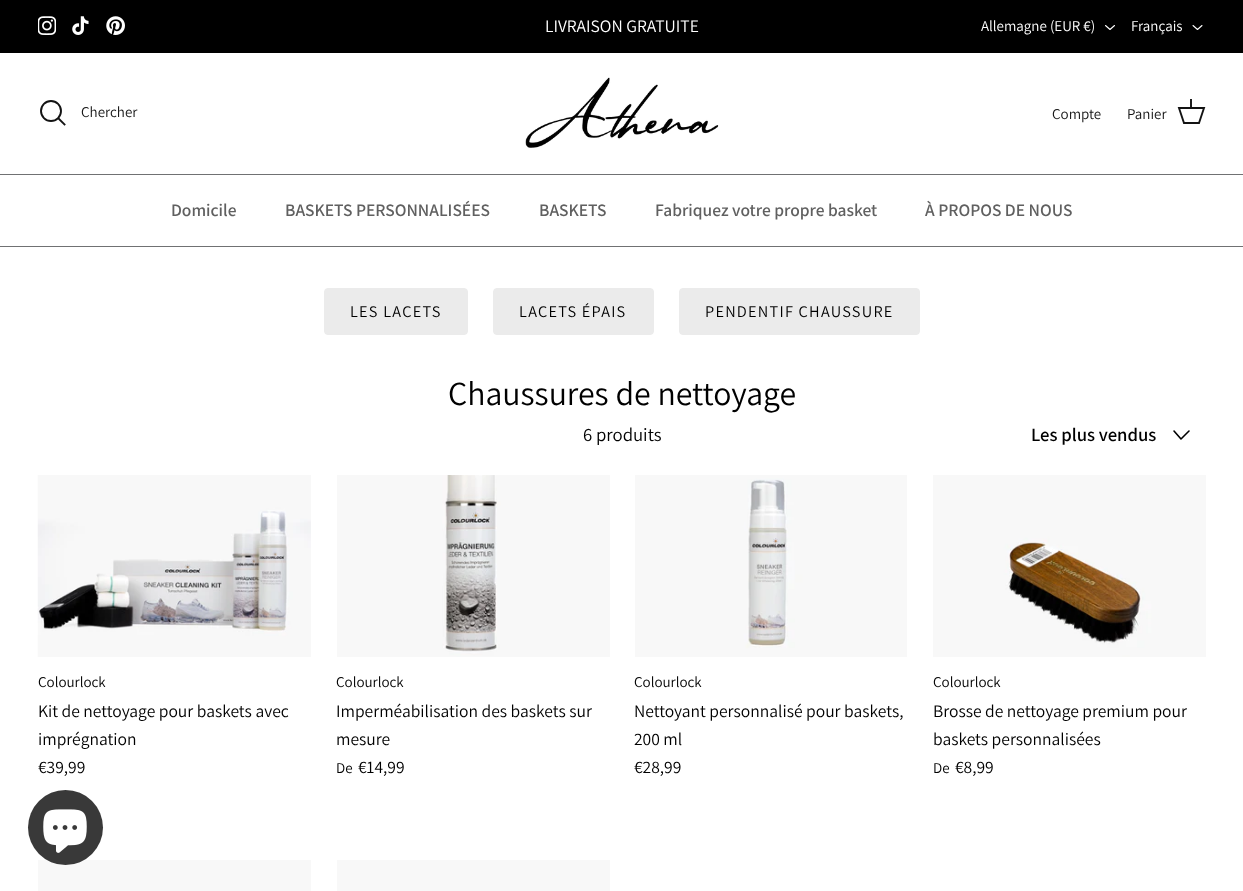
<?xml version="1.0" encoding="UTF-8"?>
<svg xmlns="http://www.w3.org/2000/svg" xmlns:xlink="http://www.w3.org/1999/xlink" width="1243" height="891">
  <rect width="100%" height="100%" fill="#ffffff" />
  <rect width="1243" height="53" fill="#000000" />
  <image x="38" y="16" width="18" height="19" xlink:href="image1.png" />
  <image x="72" y="16" width="17" height="19" xlink:href="image2.png" />
  <image x="106" y="16" width="19" height="19" xlink:href="image3.png" />
  <path d="M 1105.5 25.5 l 4.5 4 l 4.5 -4" fill="none" stroke="#ffffff" stroke-width="1.1" stroke-linecap="round" stroke-linejoin="round" />
  <path d="M 1193 25.5 l 4.5 4 l 4.5 -4" fill="none" stroke="#ffffff" stroke-width="1.1" stroke-linecap="round" stroke-linejoin="round" />
  <rect y="174" width="1243" height="1" fill="#707173" />
  <circle cx="51" cy="111" r="10" fill="none" stroke="#131313" stroke-width="1.9" />
  <path d="M 58.5 118.5 l 6 6" fill="none" stroke="#131313" stroke-width="1.9" stroke-linecap="square" />
  <image x="525" y="77" width="194" height="71" xlink:href="image4.png" />
  <path d="M 1179 108 h 25 l -5 15 h -15 z" fill="none" stroke="#131313" stroke-width="1.9" />
  <rect x="1190" y="99" width="2" height="9" fill="#131313" fill-opacity="0.95" />
  <rect y="246" width="1243" height="1" fill="#707173" />
  <rect x="324.5" y="288.5" width="143" height="46" rx="3.5" fill="#ebebeb" stroke="#ebebeb" />
  <rect x="493.5" y="288.5" width="160" height="46" rx="3.5" fill="#ebebeb" stroke="#ebebeb" />
  <rect x="679.5" y="288.5" width="240" height="46" rx="3.5" fill="#ebebeb" stroke="#ebebeb" />
  <path d="M 1174 431 l 7 8 l 8 -8" fill="none" stroke="#000000" stroke-width="1.6" stroke-linecap="round" stroke-linejoin="round" />
  <image x="37" y="475" width="274" height="182" xlink:href="image5.png" />
  <image x="337" y="475" width="273" height="182" xlink:href="image6.png" />
  <image x="635" y="475" width="272" height="182" xlink:href="image7.png" />
  <image x="933" y="475" width="273" height="182" xlink:href="image8.png" />
  <rect x="38" y="860" width="273" height="31" fill="#f8f8f8" />
  <rect x="337" y="860" width="273" height="31" fill="#f8f8f8" />
  <circle cx="65.5" cy="827.5" r="37.5" fill="#393939" />
  <image x="43" y="809" width="44" height="44" xlink:href="image9.png" />
  <text x="545" y="32" style="font-family: Assistant; font-size: 17.5px; fill: #ffffff">LIVRAISON GRATUITE</text>
  <text x="981" y="31" style="font-family: Assistant; font-size: 15px; fill: #ffffff">Allemagne (EUR €)</text>
  <text x="1131" y="31" style="font-family: Assistant; font-size: 15px; fill: #ffffff">Français</text>
  <text x="81" y="117" style="font-family: Assistant; font-size: 15px; fill: #131313">Chercher</text>
  <text x="1052" y="119" style="font-family: Assistant; font-size: 15px; fill: #131313">Compte</text>
  <text x="1127" y="119" style="font-family: Assistant; font-size: 15px; fill: #131313">Panier</text>
  <text x="171" y="216" style="font-family: Assistant; font-size: 17.5px; font-weight: 600; fill: #606060">Domicile</text>
  <text x="285" y="216" style="font-family: Assistant; font-size: 17.5px; font-weight: 600; fill: #606060">BASKETS PERSONNALISÉES</text>
  <text x="539" y="216" style="font-family: Assistant; font-size: 17.5px; font-weight: 600; fill: #606060">BASKETS</text>
  <text x="655" y="216" style="font-family: Assistant; font-size: 17.5px; font-weight: 600; fill: #606060">Fabriquez votre propre basket</text>
  <text x="925" y="216" style="font-family: Assistant; font-size: 17.5px; font-weight: 600; fill: #606060">À PROPOS DE NOUS</text>
  <text x="350" y="317" style="font-family: Assistant; font-size: 16.25px; letter-spacing: 1.25px; fill: #000000">LES LACETS</text>
  <text x="519" y="317" style="font-family: Assistant; font-size: 16.25px; letter-spacing: 1.25px; fill: #000000">LACETS ÉPAIS</text>
  <text x="705" y="317" style="font-family: Assistant; font-size: 16.25px; letter-spacing: 1.25px; fill: #000000">PENDENTIF CHAUSSURE</text>
  <text x="448" y="405" style="font-family: Assistant; font-size: 33.75px; fill: #000000">Chaussures de nettoyage</text>
  <text x="583" y="441" style="font-family: Assistant; font-size: 18.75px; fill: #000000">6 produits</text>
  <text x="1031" y="441" style="font-family: Assistant; font-size: 18.75px; font-weight: 600; fill: #000000">Les plus vendus</text>
  <text x="38" y="687" style="font-family: Assistant; font-size: 15px; fill: #000000">Colourlock</text>
  <text x="38" y="717" style="font-family: Assistant; font-size: 17.5px; fill: #000000">Kit de nettoyage pour baskets avec</text>
  <text x="38" y="745" style="font-family: Assistant; font-size: 17.5px; fill: #000000">imprégnation</text>
  <text x="38" y="773" style="font-family: Assistant; font-size: 17.5px; fill: #000000">€39,99</text>
  <text x="336" y="687" style="font-family: Assistant; font-size: 15px; fill: #000000">Colourlock</text>
  <text x="336" y="717" style="font-family: Assistant; font-size: 17.5px; fill: #000000">Imperméabilisation des baskets sur</text>
  <text x="336" y="745" style="font-family: Assistant; font-size: 17.5px; fill: #000000">mesure</text>
  <text x="336" y="773" style="font-family: Assistant; font-size: 15px; fill: #000000">De</text>
  <text x="358" y="773" style="font-family: Assistant; font-size: 17.5px; fill: #000000">€14,99</text>
  <text x="634" y="687" style="font-family: Assistant; font-size: 15px; fill: #000000">Colourlock</text>
  <text x="634" y="717" style="font-family: Assistant; font-size: 17.5px; fill: #000000">Nettoyant personnalisé pour baskets,</text>
  <text x="634" y="745" style="font-family: Assistant; font-size: 17.5px; fill: #000000">200 ml</text>
  <text x="634" y="773" style="font-family: Assistant; font-size: 17.5px; fill: #000000">€28,99</text>
  <text x="933" y="687" style="font-family: Assistant; font-size: 15px; fill: #000000">Colourlock</text>
  <text x="933" y="717" style="font-family: Assistant; font-size: 17.5px; fill: #000000">Brosse de nettoyage premium pour</text>
  <text x="933" y="745" style="font-family: Assistant; font-size: 17.5px; fill: #000000">baskets personnalisées</text>
  <text x="933" y="773" style="font-family: Assistant; font-size: 15px; fill: #000000">De</text>
  <text x="955" y="773" style="font-family: Assistant; font-size: 17.5px; fill: #000000">€8,99</text>
</svg>
